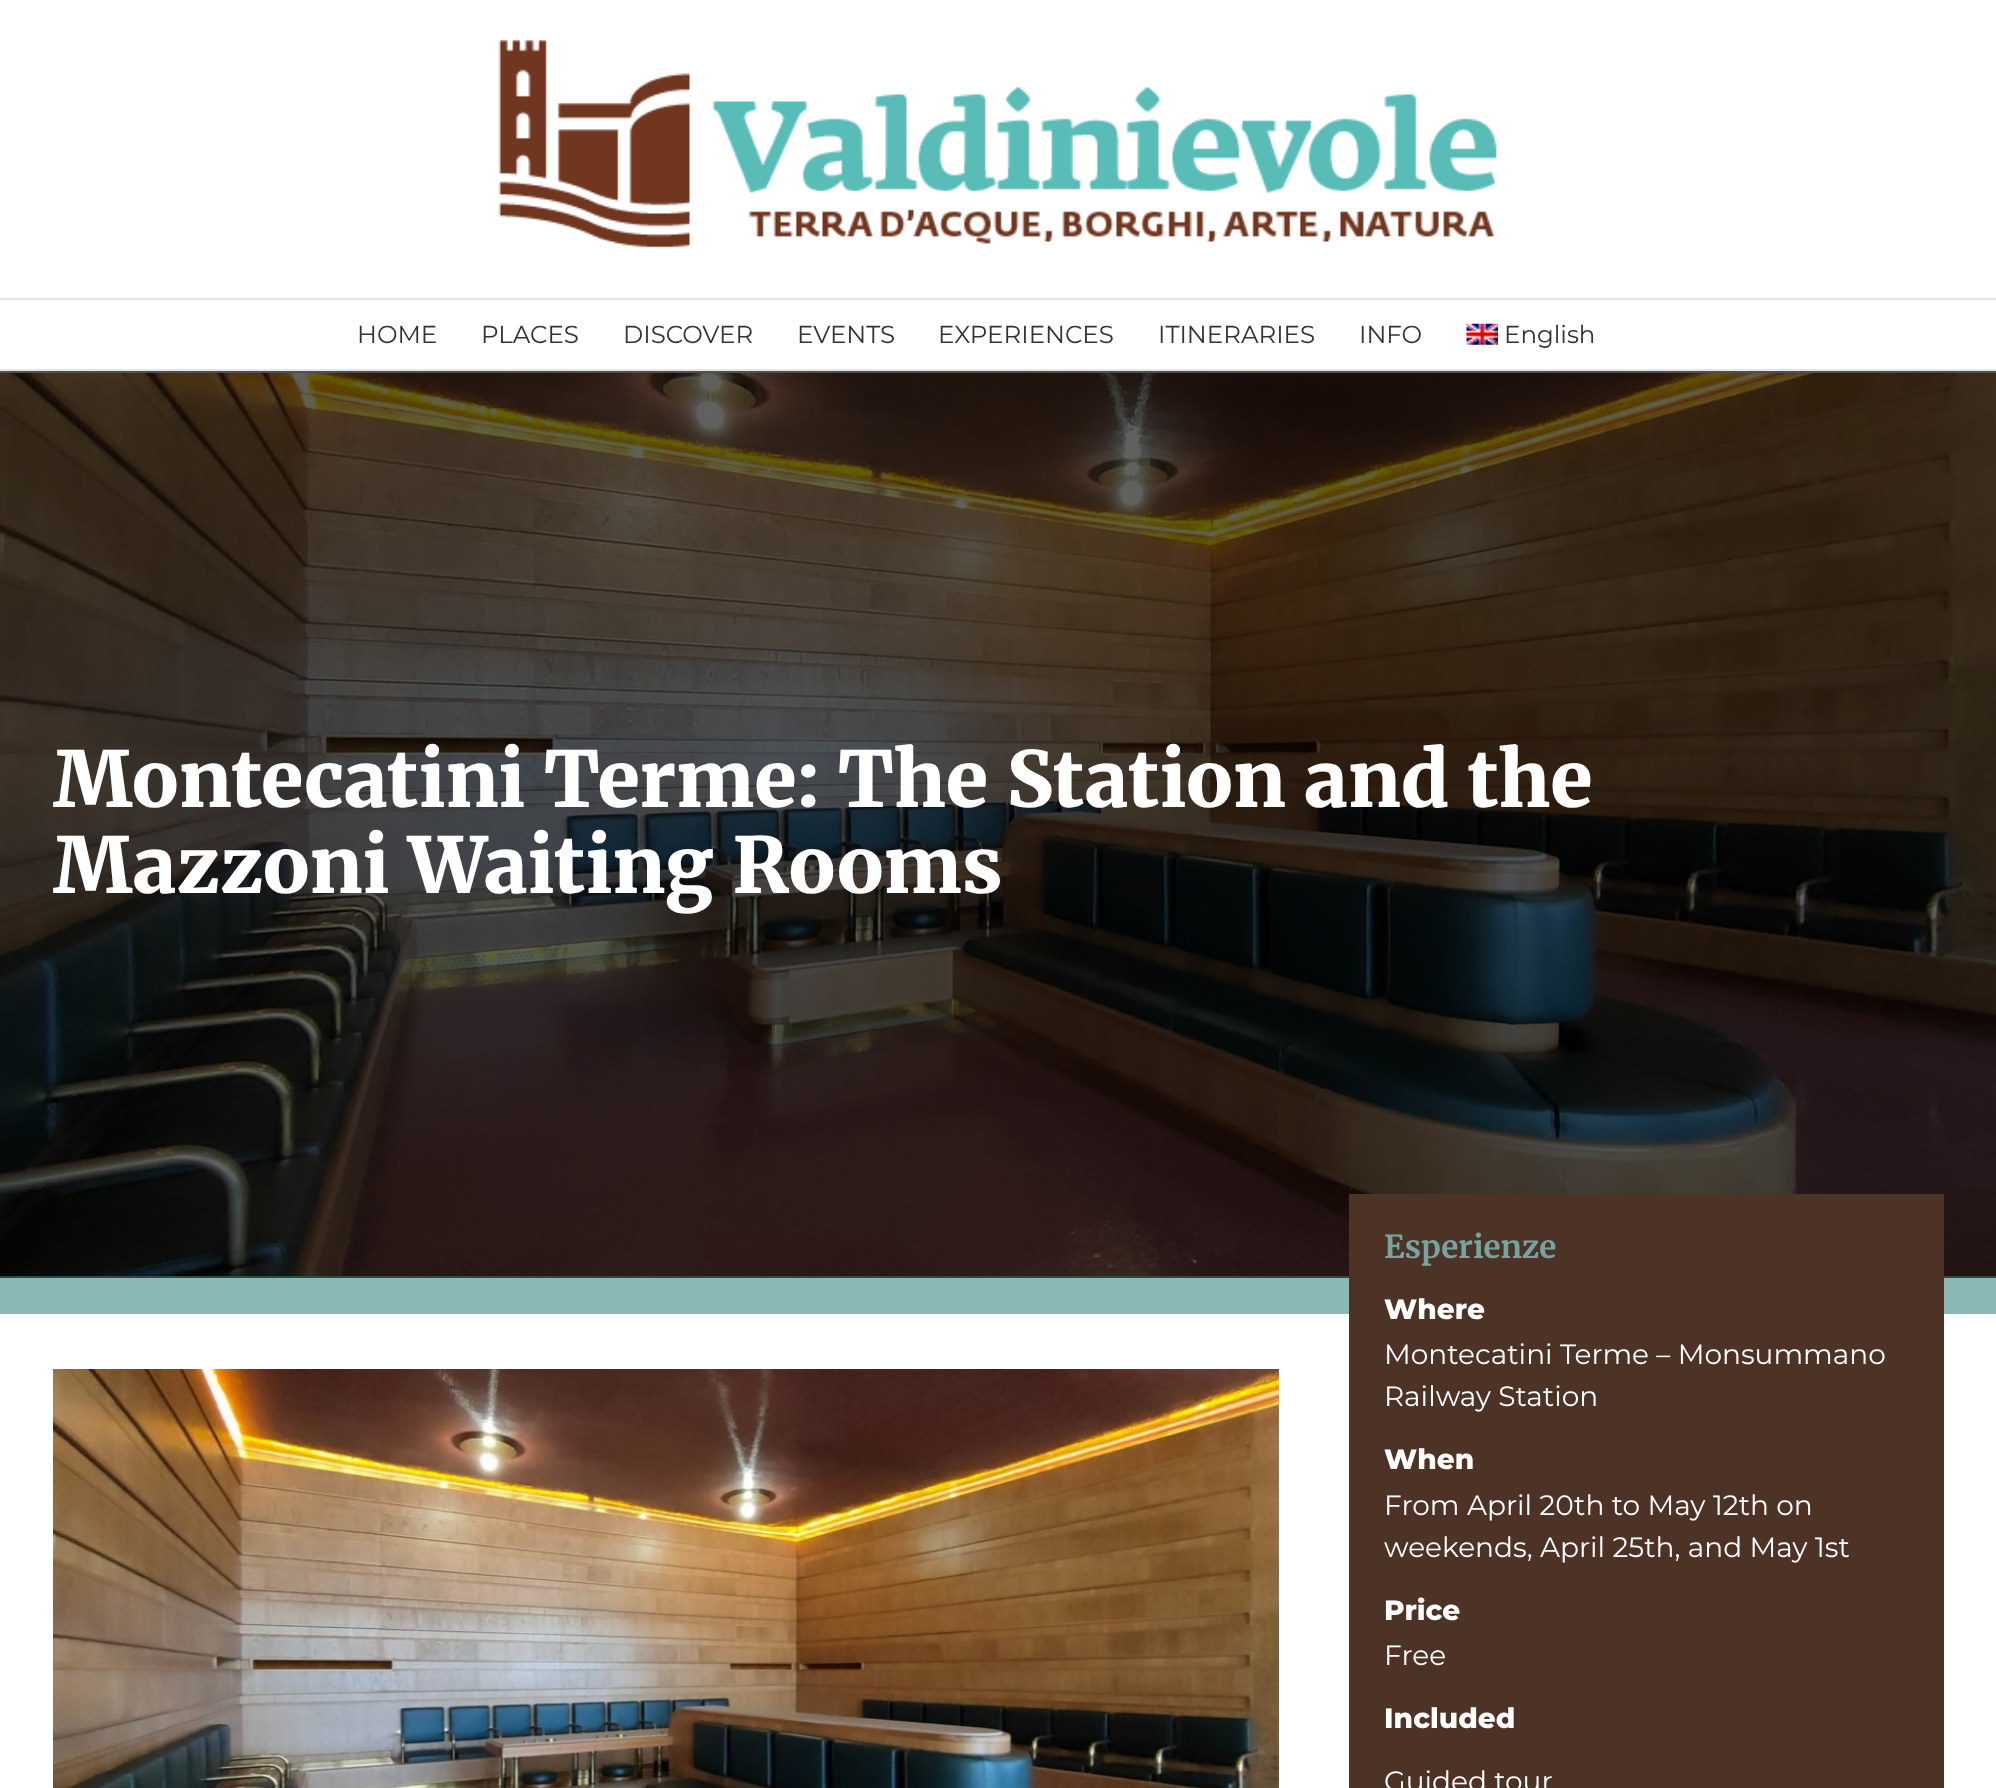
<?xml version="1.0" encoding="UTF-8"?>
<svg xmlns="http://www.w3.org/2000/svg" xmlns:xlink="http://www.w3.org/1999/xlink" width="1996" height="1788">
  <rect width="100%" height="100%" fill="#ffffff" />
  <rect y="298" width="1996" height="2" fill="#e5e5e5" />
  <image x="498" y="39" width="999" height="209" xlink:href="image1.png" />
  <rect y="369" width="1996" height="2" fill="#e5e5e5" />
  <image x="1466" y="323" width="32" height="22" xlink:href="image2.png" />
  <image x="0" y="373" width="1996" height="903" xlink:href="image3.png" />
  <rect y="371" width="1996" height="2" fill="#505051" />
  <rect y="1278" width="1996" height="36" fill="#8ab8b6" />
  <rect y="1276" width="1996" height="2" fill="#344645" />
  <image x="53" y="1369" width="1226" height="419" xlink:href="image4.png" />
  <rect x="1349" y="1194" width="595" height="594" fill="#4d3226" />
  <text x="357" y="343" style="font-family: Montserrat; font-size: 24.5px; fill: #333333">HOME</text>
  <text x="481" y="343" style="font-family: Montserrat; font-size: 24.5px; fill: #333333">PLACES</text>
  <text x="623" y="343" style="font-family: Montserrat; font-size: 24.5px; fill: #333333">DISCOVER</text>
  <text x="797" y="343" style="font-family: Montserrat; font-size: 24.5px; fill: #333333">EVENTS</text>
  <text x="938" y="343" style="font-family: Montserrat; font-size: 24.5px; fill: #333333">EXPERIENCES</text>
  <text x="1158" y="343" style="font-family: Montserrat; font-size: 24.5px; fill: #333333">ITINERARIES</text>
  <text x="1359" y="343" style="font-family: Montserrat; font-size: 24.5px; fill: #333333">INFO</text>
  <text x="1504" y="343" style="font-family: Montserrat; font-size: 24.5px; fill: #333333">English</text>
  <text x="53" y="807" style="font-family: Merriweather; font-size: 77px; font-weight: 900; fill: #ffffff">Montecatini Terme: The Station and the</text>
  <text x="53" y="893" style="font-family: Merriweather; font-size: 77px; font-weight: 900; fill: #ffffff">Mazzoni Waiting Rooms</text>
  <text x="1384" y="1258" style="font-family: Merriweather; font-size: 31.5px; font-weight: bold; fill: #76a5a1">Esperienze</text>
  <text x="1384" y="1319" style="font-family: Montserrat; font-size: 28px; font-weight: 800; fill: #ffffff">Where</text>
  <text x="1384" y="1364" style="font-family: Montserrat; font-size: 28px; fill: #ffffff">Montecatini Terme – Monsummano</text>
  <text x="1384" y="1406" style="font-family: Montserrat; font-size: 28px; fill: #ffffff">Railway Station</text>
  <text x="1384" y="1469" style="font-family: Montserrat; font-size: 28px; font-weight: 800; fill: #ffffff">When</text>
  <text x="1384" y="1515" style="font-family: Montserrat; font-size: 28px; fill: #ffffff">From April 20th to May 12th on</text>
  <text x="1384" y="1557" style="font-family: Montserrat; font-size: 28px; fill: #ffffff">weekends, April 25th, and May 1st</text>
  <text x="1384" y="1620" style="font-family: Montserrat; font-size: 28px; font-weight: 800; fill: #ffffff">Price</text>
  <text x="1384" y="1665" style="font-family: Montserrat; font-size: 28px; fill: #ffffff">Free</text>
  <text x="1384" y="1728" style="font-family: Montserrat; font-size: 28px; font-weight: 800; fill: #ffffff">Included</text>
  <text x="1384" y="1791" style="font-family: Montserrat; font-size: 28px; fill: #ffffff">Guided tour</text>
</svg>
